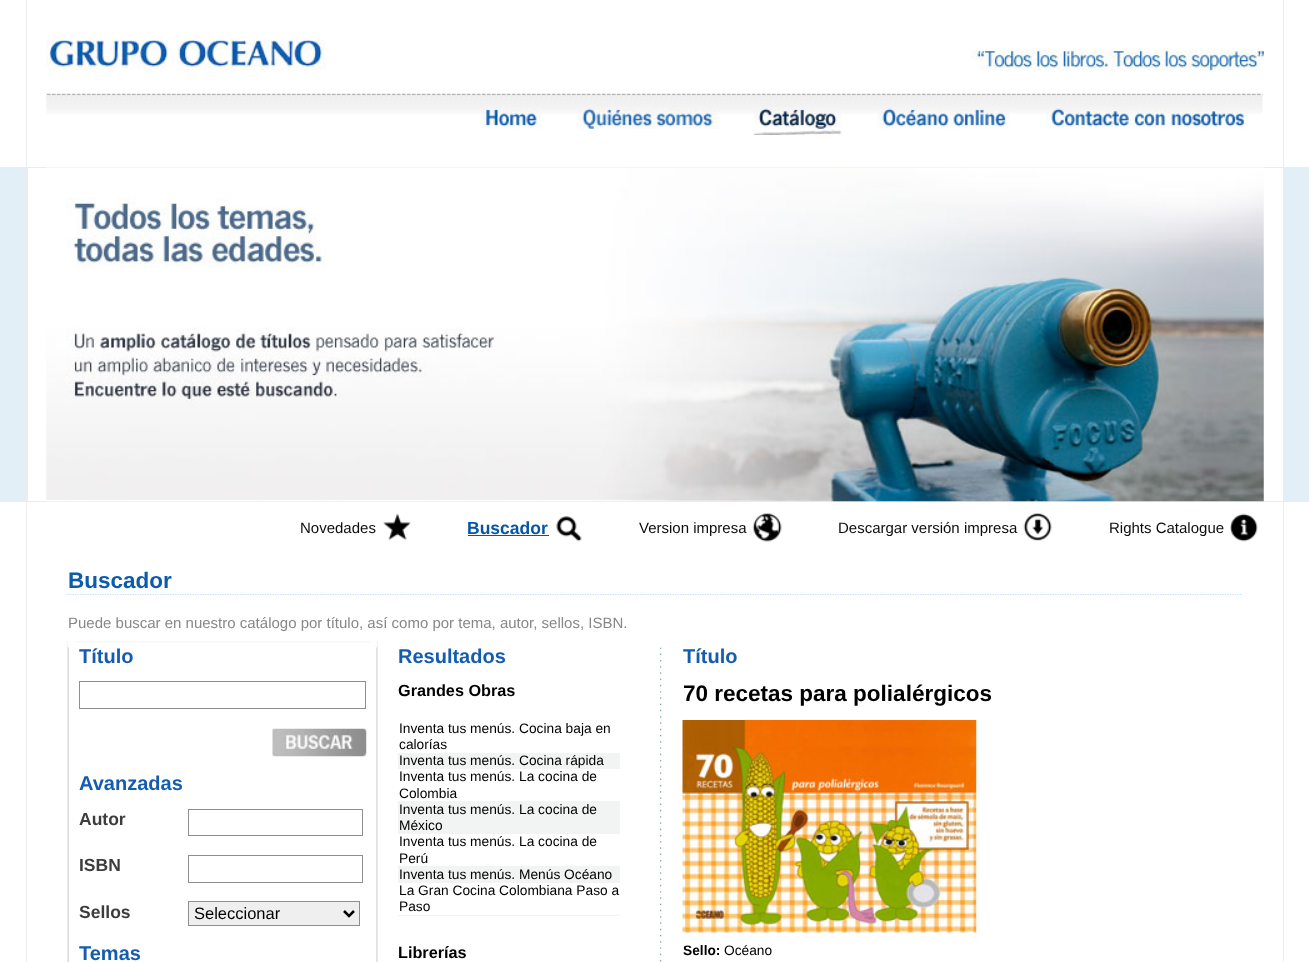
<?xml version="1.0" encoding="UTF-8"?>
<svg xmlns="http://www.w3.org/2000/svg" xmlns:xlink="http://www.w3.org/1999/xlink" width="1309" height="962">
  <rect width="100%" height="100%" fill="#ffffff" />
  <rect y="167" width="1309" height="335" fill="#e3eff6" />
  <rect x="1283" width="1" height="962" fill="#efebef" />
  <rect x="26" width="1" height="962" fill="#efebef" />
  <image x="46" y="39" width="280" height="31" xlink:href="image1.png" />
  <image x="970" y="50" width="294" height="21" xlink:href="image2.png" />
  <image x="46" y="93" width="1217" height="21" xlink:href="image3.png" />
  <image x="481" y="108" width="61" height="21" xlink:href="image4.png" />
  <image x="577" y="108" width="141" height="21" xlink:href="image5.png" />
  <image x="753" y="108" width="89" height="27" xlink:href="image6.png" />
  <image x="877" y="108" width="133" height="21" xlink:href="image7.png" />
  <image x="1046" y="108" width="202" height="21" xlink:href="image8.png" />
  <rect x="28" y="168" width="1255" height="333" fill="#ffffff" />
  <image x="46" y="167" width="1218" height="335" xlink:href="image9.png" />
  <image x="383" y="513" width="28" height="28" xlink:href="image10.png" />
  <rect x="468" y="535" width="81" height="1" fill="#0655a7" />
  <image x="556" y="516" width="26" height="26" xlink:href="image11.png" />
  <image x="752" y="513" width="30" height="29" xlink:href="image12.png" />
  <image x="1023" y="513" width="29" height="28" xlink:href="image13.png" />
  <image x="1230" y="513" width="28" height="29" xlink:href="image14.png" />
  <path d="M 67.5 594.5 h 1175" fill="none" stroke="#bddcfb" stroke-width="1.2" stroke-dasharray="1.25 1.25" />
  <image x="67" y="641" width="311" height="321" xlink:href="image15.png" />
  <image x="67" y="641" width="311" height="7" xlink:href="image16.png" />
  <rect x="79.5" y="681.5" width="286" height="27" fill="none" stroke="#8e8e8e" />
  <image x="272" y="728" width="95" height="29" xlink:href="image17.png" />
  <rect x="188.5" y="809.5" width="174" height="26" fill="none" stroke="#8e8e8e" />
  <rect x="188.5" y="855.5" width="174" height="27" fill="none" stroke="#8e8e8e" />
  <rect x="188.5" y="901.5" width="171" height="24" fill="#efefef" stroke="#8e8e8e" />
  <path d="M 344 911 l 5 5 l 5 -5" fill="none" stroke="#000000" stroke-width="2.5" />
  <image x="660" y="647" width="2" height="315" xlink:href="image18.png" />
  <rect x="398" y="753" width="222" height="16" fill="#f2f4f3" />
  <rect x="398" y="801" width="222" height="33" fill="#f2f4f3" />
  <rect x="398" y="866" width="222" height="17" fill="#f2f4f3" />
  <rect x="398" y="915" width="222" height="1" fill="#f2f4f3" />
  <image x="682" y="720" width="295" height="213" xlink:href="image19.png" />
  <text x="300" y="533" style="font-family: Liberation Sans; font-size: 15px; fill: #0d0d0d">Novedades</text>
  <text x="467" y="534" style="font-family: Liberation Sans; font-size: 17.5px; font-weight: bold; fill: #0655a7">Buscador</text>
  <text x="639" y="533" style="font-family: Liberation Sans; font-size: 15px; fill: #0d0d0d">Version impresa</text>
  <text x="838" y="533" style="font-family: Liberation Sans; font-size: 15px; fill: #0d0d0d">Descargar versión impresa</text>
  <text x="1109" y="533" style="font-family: Liberation Sans; font-size: 15px; fill: #0d0d0d">Rights Catalogue</text>
  <text x="68" y="588" style="font-family: Liberation Sans; font-size: 22.5px; font-weight: bold; fill: #0b5cab">Buscador</text>
  <text x="68" y="628" style="font-family: Liberation Sans; font-size: 15px; fill: #888888">Puede buscar en nuestro catálogo por título, así como por tema, autor, sellos, ISBN.</text>
  <text x="79" y="663" style="font-family: Liberation Sans; font-size: 20px; font-weight: bold; fill: #135cae">Título</text>
  <text x="79" y="790" style="font-family: Liberation Sans; font-size: 20px; font-weight: bold; fill: #135cae">Avanzadas</text>
  <text x="79" y="825" style="font-family: Liberation Sans; font-size: 17.5px; font-weight: bold; fill: #3d3d3d">Autor</text>
  <text x="79" y="871" style="font-family: Liberation Sans; font-size: 17.5px; font-weight: bold; fill: #3d3d3d">ISBN</text>
  <text x="79" y="918" style="font-family: Liberation Sans; font-size: 17.5px; font-weight: bold; fill: #3d3d3d">Sellos</text>
  <text x="194" y="919" style="font-family: Liberation Sans; font-size: 16.5px; fill: #000000">Seleccionar</text>
  <text x="79" y="960" style="font-family: Liberation Sans; font-size: 20px; font-weight: bold; fill: #135cae">Temas</text>
  <text x="398" y="663" style="font-family: Liberation Sans; font-size: 20px; font-weight: bold; fill: #135cae">Resultados</text>
  <text x="398" y="696" style="font-family: Liberation Sans; font-size: 16.25px; font-weight: bold; fill: #000000">Grandes Obras</text>
  <text x="399" y="733" style="font-family: Liberation Sans; font-size: 13.75px; fill: #000000">Inventa tus menús. Cocina baja en</text>
  <text x="399" y="749" style="font-family: Liberation Sans; font-size: 13.75px; fill: #000000">calorías</text>
  <text x="399" y="765" style="font-family: Liberation Sans; font-size: 13.75px; fill: #000000">Inventa tus menús. Cocina rápida</text>
  <text x="399" y="781" style="font-family: Liberation Sans; font-size: 13.75px; fill: #000000">Inventa tus menús. La cocina de</text>
  <text x="399" y="798" style="font-family: Liberation Sans; font-size: 13.75px; fill: #000000">Colombia</text>
  <text x="399" y="814" style="font-family: Liberation Sans; font-size: 13.75px; fill: #000000">Inventa tus menús. La cocina de</text>
  <text x="399" y="830" style="font-family: Liberation Sans; font-size: 13.75px; fill: #000000">México</text>
  <text x="399" y="846" style="font-family: Liberation Sans; font-size: 13.75px; fill: #000000">Inventa tus menús. La cocina de</text>
  <text x="399" y="863" style="font-family: Liberation Sans; font-size: 13.75px; fill: #000000">Perú</text>
  <text x="399" y="879" style="font-family: Liberation Sans; font-size: 13.75px; fill: #000000">Inventa tus menús. Menús Océano</text>
  <text x="399" y="895" style="font-family: Liberation Sans; font-size: 13.75px; fill: #000000">La Gran Cocina Colombiana Paso a</text>
  <text x="399" y="911" style="font-family: Liberation Sans; font-size: 13.75px; fill: #000000">Paso</text>
  <text x="398" y="958" style="font-family: Liberation Sans; font-size: 16.25px; font-weight: bold; fill: #000000">Librerías</text>
  <text x="683" y="663" style="font-family: Liberation Sans; font-size: 20px; font-weight: bold; fill: #135cae">Título</text>
  <text x="683" y="701" style="font-family: Liberation Sans; font-size: 22.5px; font-weight: bold; fill: #000000">70 recetas para polialérgicos</text>
  <text x="683" y="955" style="font-family: Liberation Sans; font-size: 13.75px; font-weight: bold; fill: #000000">Sello:</text>
  <text x="724" y="955" style="font-family: Liberation Sans; font-size: 13.75px; fill: #000000">Océano</text>
</svg>
